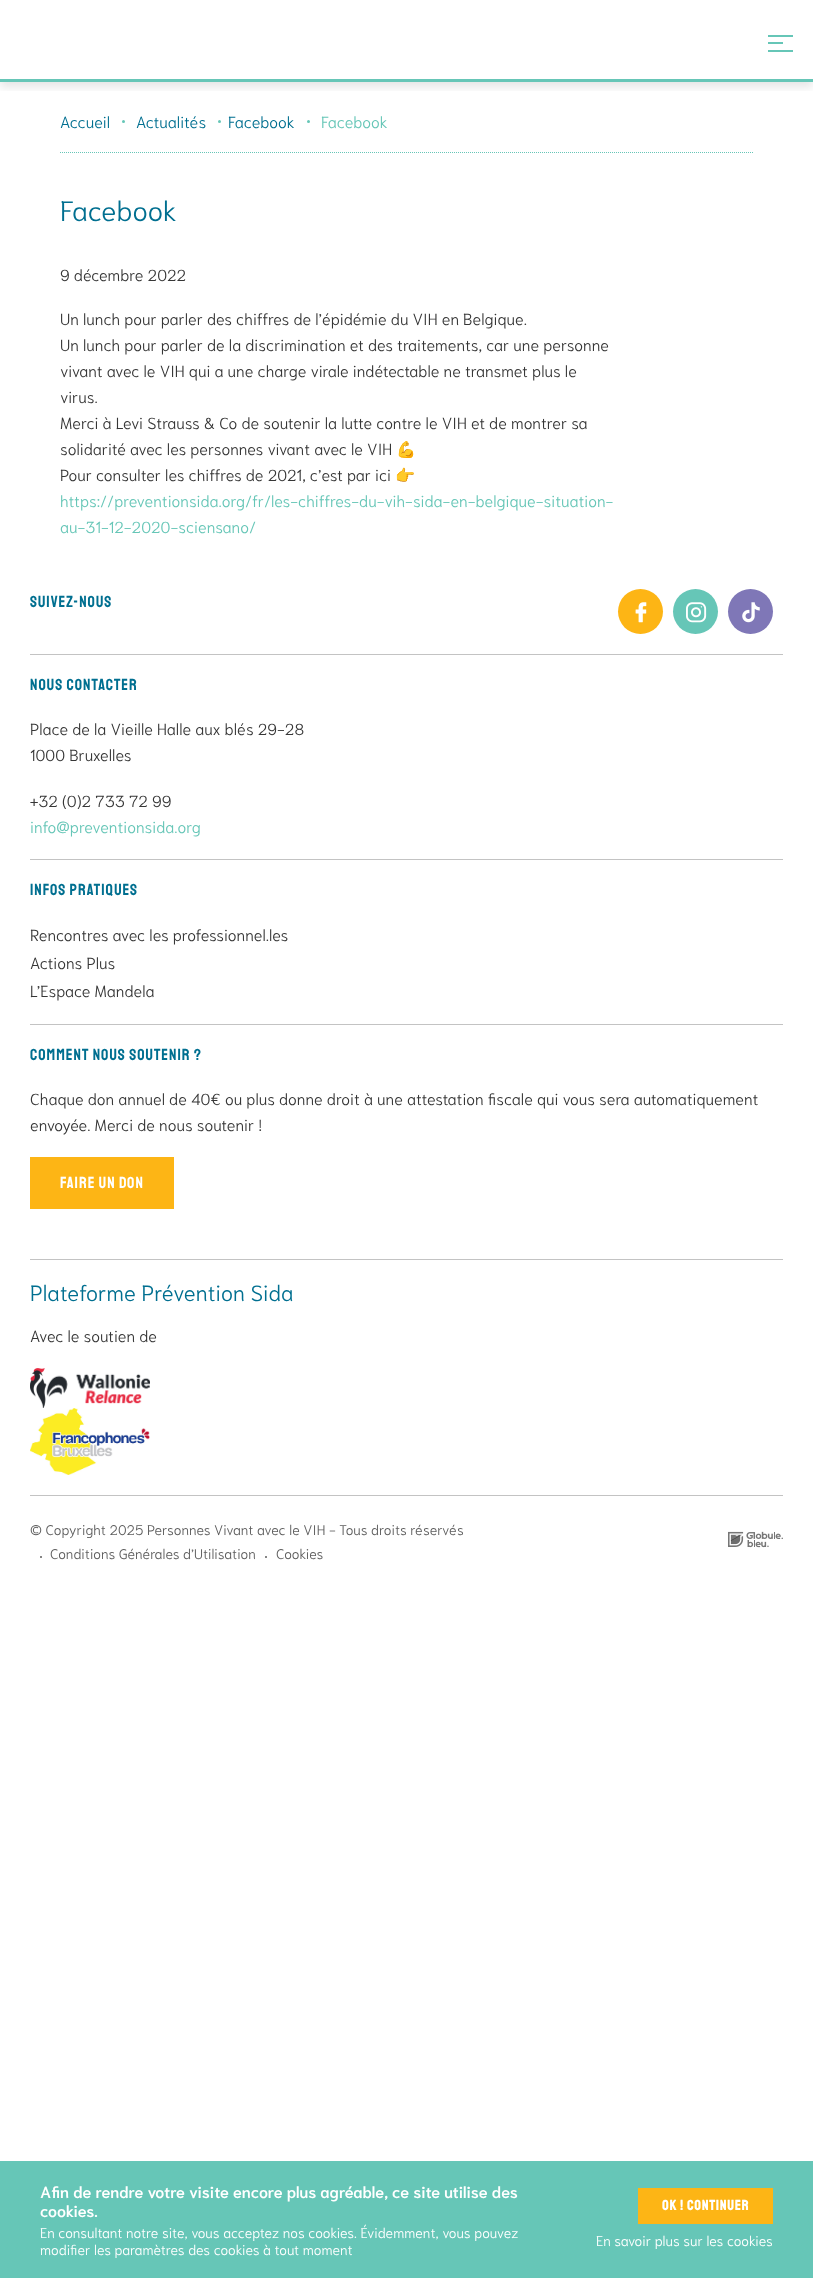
<?xml version="1.0" encoding="UTF-8"?>
<svg xmlns="http://www.w3.org/2000/svg" xmlns:xlink="http://www.w3.org/1999/xlink" width="813" height="2278">
  <defs>
    <clipPath id="clip1"><rect x="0" y="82" width="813" height="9" /></clipPath>
  </defs>
  <rect width="100%" height="100%" fill="#ffffff" />
  <g clip-path="url(#clip1)">
    <rect y="5" width="813" height="82" fill="#000000" fill-opacity="0.1" filter="blur(5px)" />
  </g>
  <rect x="768" y="42" width="15" height="2" fill="#66c6b7" />
  <rect x="768" y="35" width="25" height="2" fill="#66c6b7" />
  <rect x="768" y="50" width="25" height="2" fill="#66c6b7" />
  <rect y="79" width="813" height="3" fill="#66c6b7" />
  <path d="M 60 152.5 h 693" fill="none" stroke="#66c6b7" stroke-dasharray="1 1" />
  <circle cx="123.5" cy="121.5" r="1.5" fill="#66c6b7" />
  <circle cx="219.5" cy="121.5" r="1.5" fill="#66c6b7" />
  <circle cx="308.5" cy="121.5" r="1.5" fill="#66c6b7" />
  <rect x="30" y="654" width="753" height="1" fill="#c3c3c3" />
  <circle cx="640.5" cy="611.5" r="22.5" fill="#fdb515" />
  <image x="635" y="602" width="12" height="21" xlink:href="image1.png" />
  <circle cx="695.5" cy="611.5" r="22.5" fill="#66c6b7" />
  <image x="686" y="602" width="21" height="21" xlink:href="image2.png" />
  <circle cx="750.5" cy="611.5" r="22.5" fill="#7f77b7" />
  <image x="742" y="602" width="18" height="21" xlink:href="image3.png" />
  <rect x="30" y="859" width="753" height="1" fill="#c3c3c3" />
  <rect x="30" y="1024" width="753" height="1" fill="#c3c3c3" />
  <rect x="30" y="1259" width="753" height="1" fill="#c3c3c3" />
  <rect x="30" y="1157" width="144" height="52" fill="#fdb515" />
  <rect x="30" y="1495" width="753" height="1" fill="#c3c3c3" />
  <image x="30" y="1368" width="120" height="40" xlink:href="image4.png" />
  <image x="30" y="1408" width="120" height="67" xlink:href="image5.png" />
  <circle cx="41" cy="1557" r="1" fill="#5e5e5e" />
  <circle cx="266" cy="1557" r="1" fill="#5e5e5e" />
  <image x="728" y="1531" width="55" height="17" xlink:href="image6.png" />
  <rect y="2161" width="813" height="117" fill="#66c6b7" />
  <rect x="638" y="2188" width="135" height="36" fill="#fdb515" />
  <text x="60" y="128" style="font-family: Niramit; font-size: 16px; font-weight: 300; fill: #006f90">Accueil</text>
  <text x="136" y="128" style="font-family: Niramit; font-size: 16px; font-weight: 300; fill: #006f90">Actualités</text>
  <text x="228" y="128" style="font-family: Niramit; font-size: 16px; font-weight: 300; fill: #006f90">Facebook</text>
  <text x="321" y="128" style="font-family: Niramit; font-size: 16px; font-weight: 300; fill: #66c6b7">Facebook</text>
  <text x="60" y="221" style="font-family: Niramit; font-size: 28px; font-weight: 300; fill: #006f90">Facebook</text>
  <text x="60" y="281" style="font-family: Niramit; font-size: 16px; font-weight: 300; fill: #363636">9 décembre 2022</text>
  <text x="60" y="325" style="font-family: Niramit; font-size: 16px; font-weight: 300; fill: #363636">Un lunch pour parler des chiffres de l’épidémie du VIH en Belgique.</text>
  <text x="60" y="351" style="font-family: Niramit; font-size: 16px; font-weight: 300; fill: #363636">Un lunch pour parler de la discrimination et des traitements, car une personne</text>
  <text x="60" y="377" style="font-family: Niramit; font-size: 16px; font-weight: 300; fill: #363636">vivant avec le VIH qui a une charge virale indétectable ne transmet plus le</text>
  <text x="60" y="403" style="font-family: Niramit; font-size: 16px; font-weight: 300; fill: #363636">virus.</text>
  <text x="60" y="429" style="font-family: Niramit; font-size: 16px; font-weight: 300; fill: #363636">Merci à Levi Strauss &amp; Co de soutenir la lutte contre le VIH et de montrer sa</text>
  <text x="60" y="455" style="font-family: Niramit; font-size: 16px; font-weight: 300; fill: #363636">solidarité avec les personnes vivant avec le VIH</text>
  <text x="396" y="455" style="font-family: Noto Color Emoji; font-size: 16px; fill: #363636">💪</text>
  <text x="60" y="481" style="font-family: Niramit; font-size: 16px; font-weight: 300; fill: #363636">Pour consulter les chiffres de 2021, c’est par ici</text>
  <text x="395" y="481" style="font-family: Noto Color Emoji; font-size: 16px; fill: #363636">👉</text>
  <text x="60" y="507" style="font-family: Niramit; font-size: 16px; font-weight: 300; fill: #66c6b7">https://preventionsida.org/fr/les-chiffres-du-vih-sida-en-belgique-situation-</text>
  <text x="60" y="533" style="font-family: Niramit; font-size: 16px; font-weight: 300; fill: #66c6b7">au-31-12-2020-sciensano/</text>
  <text x="30" y="607" style="font-family: Staatliches; font-size: 16px; letter-spacing: 1px; fill: #006f90">Suivez-nous</text>
  <text x="30" y="690" style="font-family: Staatliches; font-size: 16px; letter-spacing: 1px; fill: #006f90">Nous contacter</text>
  <text x="30" y="735" style="font-family: Niramit; font-size: 16px; font-weight: 300; fill: #363636">Place de la Vieille Halle aux blés 29-28</text>
  <text x="30" y="761" style="font-family: Niramit; font-size: 16px; font-weight: 300; fill: #363636">1000 Bruxelles</text>
  <text x="30" y="807" style="font-family: Niramit; font-size: 16px; font-weight: 300; fill: #363636">+32 (0)2 733 72 99</text>
  <text x="30" y="833" style="font-family: Niramit; font-size: 16px; font-weight: 300; fill: #66c6b7">info@preventionsida.org</text>
  <text x="30" y="895" style="font-family: Staatliches; font-size: 16px; letter-spacing: 1px; fill: #006f90">Infos pratiques</text>
  <text x="30" y="941" style="font-family: Niramit; font-size: 16px; font-weight: 300; fill: #363636">Rencontres avec les professionnel.les</text>
  <text x="30" y="969" style="font-family: Niramit; font-size: 16px; font-weight: 300; fill: #363636">Actions Plus</text>
  <text x="30" y="997" style="font-family: Niramit; font-size: 16px; font-weight: 300; fill: #363636">L’Espace Mandela</text>
  <text x="30" y="1060" style="font-family: Staatliches; font-size: 16px; letter-spacing: 1px; fill: #006f90">Comment nous soutenir ?</text>
  <text x="30" y="1105" style="font-family: Niramit; font-size: 16px; font-weight: 300; fill: #363636">Chaque don annuel de 40€ ou plus donne droit à une attestation fiscale qui vous sera automatiquement</text>
  <text x="30" y="1131" style="font-family: Niramit; font-size: 16px; font-weight: 300; fill: #363636">envoyée. Merci de nous soutenir !</text>
  <text x="60" y="1188" style="font-family: Staatliches; font-size: 16px; letter-spacing: 1px; fill: #ffffff">Faire un don</text>
  <text x="30" y="1301" style="font-family: Niramit; font-size: 22px; font-weight: 300; fill: #006f90">Plateforme Prévention Sida</text>
  <text x="30" y="1342" style="font-family: Niramit; font-size: 16px; font-weight: 300; fill: #363636">Avec le soutien de</text>
  <text x="30" y="1535" style="font-family: Niramit; font-size: 14px; font-weight: 300; fill: #5e5e5e">© Copyright 2025 Personnes Vivant avec le VIH - Tous droits réservés</text>
  <text x="50" y="1559" style="font-family: Niramit; font-size: 14px; font-weight: 300; fill: #5e5e5e">Conditions Générales d’Utilisation</text>
  <text x="276" y="1559" style="font-family: Niramit; font-size: 14px; font-weight: 300; fill: #5e5e5e">Cookies</text>
  <text x="40" y="2198" style="font-family: Niramit; font-size: 16px; font-weight: 600; fill: #ffffff">Afin de rendre votre visite encore plus agréable, ce site utilise des</text>
  <text x="40" y="2217" style="font-family: Niramit; font-size: 16px; font-weight: 600; fill: #ffffff">cookies.</text>
  <text x="40" y="2238" style="font-family: Niramit; font-size: 14px; font-weight: 300; fill: #ffffff">En consultant notre site, vous acceptez nos cookies. Évidemment, vous pouvez</text>
  <text x="40" y="2255" style="font-family: Niramit; font-size: 14px; font-weight: 300; fill: #ffffff">modifier les paramètres des cookies à tout moment</text>
  <text x="662" y="2210" style="font-family: Staatliches; font-size: 14px; font-weight: bold; letter-spacing: 1px; fill: #ffffff">OK ! Continuer</text>
  <text x="596" y="2246" style="font-family: Niramit; font-size: 14px; font-weight: 300; fill: #ffffff">En savoir plus sur les cookies</text>
</svg>
